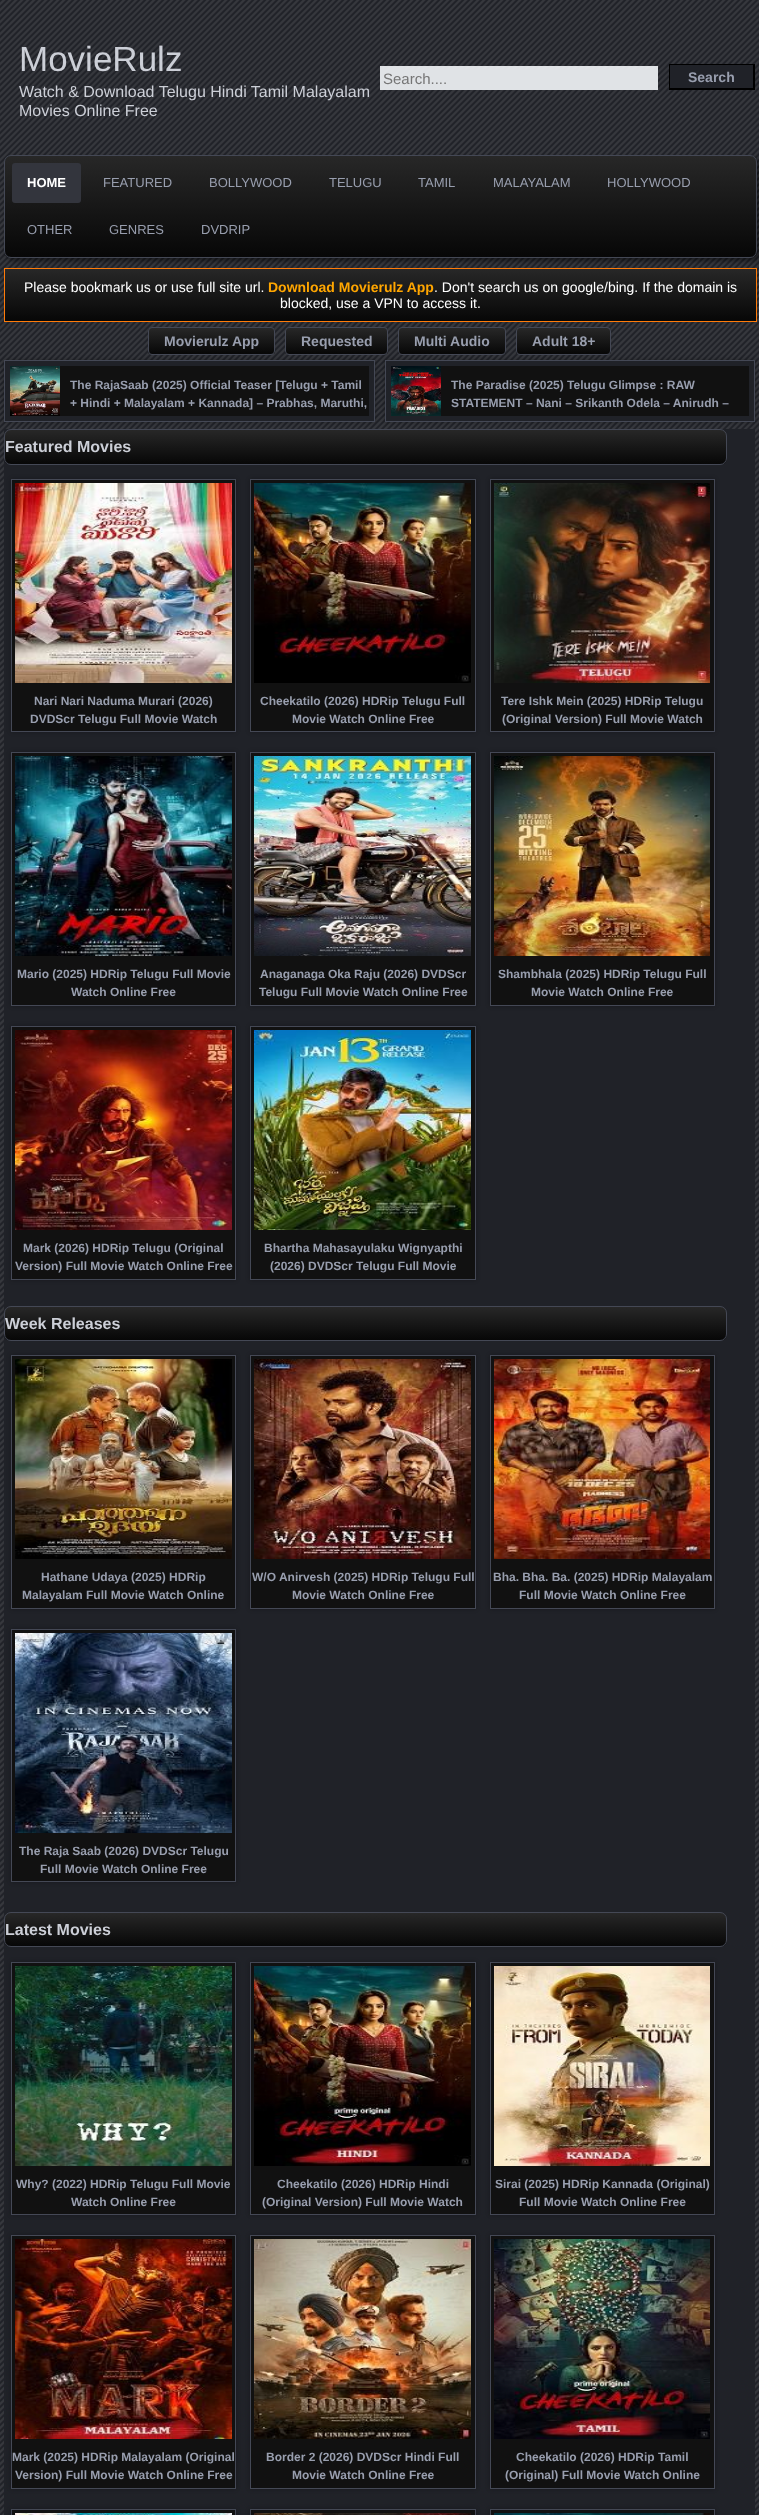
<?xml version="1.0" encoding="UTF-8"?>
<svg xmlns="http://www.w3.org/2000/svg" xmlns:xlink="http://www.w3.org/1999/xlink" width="759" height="2515">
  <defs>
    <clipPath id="clip1"><rect x="4" y="155" width="753" height="103" rx="7" /></clipPath>
    <linearGradient id="g1" gradientUnits="userSpaceOnUse" x1="381" y1="156" x2="381" y2="257"><stop offset="0.01" stop-color="#272727" /><stop offset="1" stop-color="#070707" /></linearGradient>
    <linearGradient id="g2" gradientUnits="userSpaceOnUse" x1="381" y1="269" x2="381" y2="321"><stop offset="0.01" stop-color="#272727" /><stop offset="1" stop-color="#070707" /></linearGradient>
    <clipPath id="clip2"><rect x="148" y="327" width="127" height="28" rx="4" /></clipPath>
    <linearGradient id="g3" gradientUnits="userSpaceOnUse" x1="212" y1="328" x2="212" y2="354"><stop offset="0.01" stop-color="#272727" /><stop offset="1" stop-color="#070707" /></linearGradient>
    <clipPath id="clip3"><rect x="285" y="327" width="103" height="28" rx="4" /></clipPath>
    <linearGradient id="g4" gradientUnits="userSpaceOnUse" x1="337" y1="328" x2="337" y2="354"><stop offset="0.01" stop-color="#272727" /><stop offset="1" stop-color="#070707" /></linearGradient>
    <clipPath id="clip4"><rect x="398" y="327" width="108" height="28" rx="4" /></clipPath>
    <linearGradient id="g5" gradientUnits="userSpaceOnUse" x1="452" y1="328" x2="452" y2="354"><stop offset="0.01" stop-color="#272727" /><stop offset="1" stop-color="#070707" /></linearGradient>
    <clipPath id="clip5"><rect x="516" y="327" width="95" height="28" rx="4" /></clipPath>
    <linearGradient id="g6" gradientUnits="userSpaceOnUse" x1="564" y1="328" x2="564" y2="354"><stop offset="0.01" stop-color="#272727" /><stop offset="1" stop-color="#070707" /></linearGradient>
    <clipPath id="clip6"><rect x="4" y="429" width="723" height="36" rx="7" /></clipPath>
    <linearGradient id="g7" gradientUnits="userSpaceOnUse" x1="366" y1="430" x2="366" y2="464"><stop offset="0.01" stop-color="#272727" /><stop offset="1" stop-color="#070707" /></linearGradient>
    <clipPath id="clip7"><rect x="4" y="1306" width="723" height="35" rx="7" /></clipPath>
    <linearGradient id="g8" gradientUnits="userSpaceOnUse" x1="366" y1="1307" x2="366" y2="1340"><stop offset="0.01" stop-color="#272727" /><stop offset="1" stop-color="#070707" /></linearGradient>
    <clipPath id="clip8"><rect x="4" y="1912" width="723" height="35" rx="7" /></clipPath>
    <linearGradient id="g9" gradientUnits="userSpaceOnUse" x1="366" y1="1913" x2="366" y2="1946"><stop offset="0.01" stop-color="#272727" /><stop offset="1" stop-color="#070707" /></linearGradient>
  </defs>
  <rect width="100%" height="100%" fill="#202228" />
  <image x="0" y="0" width="759" height="2515" xlink:href="image1.png" />
  <rect x="380" y="66" width="278" height="24" fill="#e0e3e6" />
  <rect x="670" y="65" width="83" height="23" fill="#202228" />
  <rect x="669" y="64" width="86" height="1" fill="#000000" />
  <rect x="753" y="64" width="2" height="26" fill="#000000" />
  <rect x="669" y="88" width="86" height="2" fill="#000000" />
  <rect x="669" y="64" width="1" height="26" fill="#000000" />
  <rect x="7" y="158" width="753" height="103" rx="7" fill="#000000" fill-opacity="0.45" filter="blur(2px)" />
  <g clip-path="url(#clip1)">
    <rect x="4" y="156" width="753" height="101" fill="url(#g1)" />
  </g>
  <rect x="4.5" y="155.5" width="752" height="102" rx="6.5" fill="none" stroke="#444855" />
  <rect x="12" y="163" width="69" height="40" rx="3" fill="#33353d" />
  <rect x="5" y="269" width="751" height="52" fill="url(#g2)" />
  <rect x="4.5" y="268.5" width="752" height="53" fill="none" stroke="#ff7b09" />
  <g clip-path="url(#clip2)">
    <rect x="148" y="328" width="127" height="26" fill="url(#g3)" />
  </g>
  <rect x="148.5" y="327.5" width="126" height="27" rx="3.5" fill="none" stroke="#444855" />
  <g clip-path="url(#clip3)">
    <rect x="285" y="328" width="103" height="26" fill="url(#g4)" />
  </g>
  <rect x="285.5" y="327.5" width="102" height="27" rx="3.5" fill="none" stroke="#444855" />
  <g clip-path="url(#clip4)">
    <rect x="398" y="328" width="108" height="26" fill="url(#g5)" />
  </g>
  <rect x="398.5" y="327.5" width="107" height="27" rx="3.5" fill="none" stroke="#444855" />
  <g clip-path="url(#clip5)">
    <rect x="516" y="328" width="95" height="26" fill="url(#g6)" />
  </g>
  <rect x="516.5" y="327.5" width="94" height="27" rx="3.5" fill="none" stroke="#444855" />
  <rect x="4" y="360" width="371" height="62" fill="#000000" fill-opacity="0.3" filter="blur(2px)" />
  <rect x="4.5" y="360.5" width="370" height="61" fill="#202228" stroke="#444855" />
  <image x="10" y="366" width="50" height="50" xlink:href="image2.png" />
  <rect x="60" y="366" width="309" height="50" fill="#111111" />
  <rect x="385" y="360" width="370" height="62" fill="#000000" fill-opacity="0.3" filter="blur(2px)" />
  <rect x="385.5" y="360.5" width="369" height="61" fill="#202228" stroke="#444855" />
  <image x="391" y="366" width="50" height="50" xlink:href="image3.png" />
  <rect x="441" y="366" width="308" height="50" fill="#111111" />
  <rect x="4" y="429" width="751" height="2086" fill="#202228" />
  <g clip-path="url(#clip6)">
    <rect x="4" y="430" width="723" height="34" fill="url(#g7)" />
  </g>
  <rect x="4.5" y="429.5" width="722" height="35" rx="6.5" fill="none" stroke="#444855" />
  <rect x="11" y="479" width="225" height="253" fill="#000000" fill-opacity="0.3" filter="blur(2px)" />
  <rect x="11.5" y="479.5" width="224" height="252" fill="#111111" stroke="#444855" />
  <image x="15" y="483" width="217" height="200" xlink:href="image4.png" />
  <rect x="250" y="479" width="226" height="253" fill="#000000" fill-opacity="0.3" filter="blur(2px)" />
  <rect x="250.5" y="479.5" width="225" height="252" fill="#111111" stroke="#444855" />
  <image x="254" y="483" width="217" height="200" xlink:href="image5.png" />
  <rect x="490" y="479" width="225" height="253" fill="#000000" fill-opacity="0.3" filter="blur(2px)" />
  <rect x="490.5" y="479.5" width="224" height="252" fill="#111111" stroke="#444855" />
  <image x="494" y="483" width="216" height="200" xlink:href="image6.png" />
  <rect x="11" y="752" width="225" height="254" fill="#000000" fill-opacity="0.3" filter="blur(2px)" />
  <rect x="11.5" y="752.5" width="224" height="253" fill="#111111" stroke="#444855" />
  <image x="15" y="756" width="217" height="200" xlink:href="image7.png" />
  <rect x="250" y="752" width="226" height="254" fill="#000000" fill-opacity="0.3" filter="blur(2px)" />
  <rect x="250.5" y="752.5" width="225" height="253" fill="#111111" stroke="#444855" />
  <image x="254" y="756" width="217" height="200" xlink:href="image8.png" />
  <rect x="490" y="752" width="225" height="254" fill="#000000" fill-opacity="0.3" filter="blur(2px)" />
  <rect x="490.5" y="752.5" width="224" height="253" fill="#111111" stroke="#444855" />
  <image x="494" y="756" width="216" height="200" xlink:href="image9.png" />
  <rect x="11" y="1026" width="225" height="254" fill="#000000" fill-opacity="0.3" filter="blur(2px)" />
  <rect x="11.5" y="1026.5" width="224" height="253" fill="#111111" stroke="#444855" />
  <image x="15" y="1030" width="217" height="200" xlink:href="image10.png" />
  <rect x="250" y="1026" width="226" height="254" fill="#000000" fill-opacity="0.3" filter="blur(2px)" />
  <rect x="250.5" y="1026.5" width="225" height="253" fill="#111111" stroke="#444855" />
  <image x="254" y="1030" width="217" height="200" xlink:href="image11.png" />
  <g clip-path="url(#clip7)">
    <rect x="4" y="1307" width="723" height="33" fill="url(#g8)" />
  </g>
  <rect x="4.5" y="1306.5" width="722" height="34" rx="6.5" fill="none" stroke="#444855" />
  <rect x="11" y="1355" width="225" height="254" fill="#000000" fill-opacity="0.3" filter="blur(2px)" />
  <rect x="11.5" y="1355.5" width="224" height="253" fill="#111111" stroke="#444855" />
  <image x="15" y="1359" width="217" height="200" xlink:href="image12.png" />
  <rect x="250" y="1355" width="226" height="254" fill="#000000" fill-opacity="0.3" filter="blur(2px)" />
  <rect x="250.5" y="1355.5" width="225" height="253" fill="#111111" stroke="#444855" />
  <image x="254" y="1359" width="217" height="200" xlink:href="image13.png" />
  <rect x="490" y="1355" width="225" height="254" fill="#000000" fill-opacity="0.3" filter="blur(2px)" />
  <rect x="490.5" y="1355.5" width="224" height="253" fill="#111111" stroke="#444855" />
  <image x="494" y="1359" width="216" height="200" xlink:href="image14.png" />
  <rect x="11" y="1629" width="225" height="253" fill="#000000" fill-opacity="0.3" filter="blur(2px)" />
  <rect x="11.5" y="1629.5" width="224" height="252" fill="#111111" stroke="#444855" />
  <image x="15" y="1633" width="217" height="200" xlink:href="image15.png" />
  <g clip-path="url(#clip8)">
    <rect x="4" y="1913" width="723" height="33" fill="url(#g9)" />
  </g>
  <rect x="4.5" y="1912.5" width="722" height="34" rx="6.5" fill="none" stroke="#444855" />
  <rect x="11" y="1962" width="225" height="253" fill="#000000" fill-opacity="0.3" filter="blur(2px)" />
  <rect x="11.5" y="1962.5" width="224" height="252" fill="#111111" stroke="#444855" />
  <image x="15" y="1966" width="217" height="200" xlink:href="image16.png" />
  <rect x="250" y="1962" width="226" height="253" fill="#000000" fill-opacity="0.3" filter="blur(2px)" />
  <rect x="250.5" y="1962.5" width="225" height="252" fill="#111111" stroke="#444855" />
  <image x="254" y="1966" width="217" height="200" xlink:href="image17.png" />
  <rect x="490" y="1962" width="225" height="253" fill="#000000" fill-opacity="0.3" filter="blur(2px)" />
  <rect x="490.5" y="1962.5" width="224" height="252" fill="#111111" stroke="#444855" />
  <image x="494" y="1966" width="216" height="200" xlink:href="image18.png" />
  <rect x="11" y="2235" width="225" height="254" fill="#000000" fill-opacity="0.3" filter="blur(2px)" />
  <rect x="11.5" y="2235.5" width="224" height="253" fill="#111111" stroke="#444855" />
  <image x="15" y="2239" width="217" height="200" xlink:href="image19.png" />
  <rect x="250" y="2235" width="226" height="254" fill="#000000" fill-opacity="0.3" filter="blur(2px)" />
  <rect x="250.5" y="2235.5" width="225" height="253" fill="#111111" stroke="#444855" />
  <image x="254" y="2239" width="217" height="200" xlink:href="image20.png" />
  <rect x="490" y="2235" width="225" height="254" fill="#000000" fill-opacity="0.3" filter="blur(2px)" />
  <rect x="490.5" y="2235.5" width="224" height="253" fill="#111111" stroke="#444855" />
  <image x="494" y="2239" width="216" height="200" xlink:href="image21.png" />
  <rect x="11" y="2509" width="225" height="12" fill="#000000" fill-opacity="0.3" filter="blur(2px)" />
  <rect x="11.5" y="2509.5" width="224" height="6" fill="#111111" stroke="#444855" />
  <image x="15" y="2513" width="217" height="2" xlink:href="image22.png" />
  <rect x="250" y="2509" width="226" height="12" fill="#000000" fill-opacity="0.3" filter="blur(2px)" />
  <rect x="250.5" y="2509.5" width="225" height="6" fill="#111111" stroke="#444855" />
  <image x="254" y="2513" width="217" height="2" xlink:href="image23.png" />
  <rect x="490" y="2509" width="225" height="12" fill="#000000" fill-opacity="0.3" filter="blur(2px)" />
  <rect x="490.5" y="2509.5" width="224" height="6" fill="#111111" stroke="#444855" />
  <image x="494" y="2513" width="216" height="2" xlink:href="image24.png" />
  <text x="19" y="71" style="font-family: Liberation Sans; font-size: 35px; fill: #cccfd7">MovieRulz</text>
  <text x="19" y="97" style="font-family: Liberation Sans; font-size: 16px; fill: #cccfd7">Watch &amp; Download Telugu Hindi Tamil Malayalam</text>
  <text x="19" y="116" style="font-family: Liberation Sans; font-size: 16px; fill: #cccfd7">Movies Online Free</text>
  <text x="383" y="84" style="font-family: Liberation Sans; font-size: 15px; fill: #757575">Search....</text>
  <text x="688" y="82" style="font-family: Liberation Sans; font-size: 14px; font-weight: bold; fill: #989eae">Search</text>
  <text x="27" y="187" style="font-family: Liberation Sans; font-size: 13px; font-weight: bold; fill: #ffffff">HOME</text>
  <text x="103" y="187" style="font-family: Liberation Sans; font-size: 13px; fill: #989eae">FEATURED</text>
  <text x="209" y="187" style="font-family: Liberation Sans; font-size: 13px; fill: #989eae">BOLLYWOOD</text>
  <text x="329" y="187" style="font-family: Liberation Sans; font-size: 13px; fill: #989eae">TELUGU</text>
  <text x="418" y="187" style="font-family: Liberation Sans; font-size: 13px; fill: #989eae">TAMIL</text>
  <text x="493" y="187" style="font-family: Liberation Sans; font-size: 13px; fill: #989eae">MALAYALAM</text>
  <text x="607" y="187" style="font-family: Liberation Sans; font-size: 13px; fill: #989eae">HOLLYWOOD</text>
  <text x="27" y="234" style="font-family: Liberation Sans; font-size: 13px; fill: #989eae">OTHER</text>
  <text x="109" y="234" style="font-family: Liberation Sans; font-size: 13px; fill: #989eae">GENRES</text>
  <text x="201" y="234" style="font-family: Liberation Sans; font-size: 13px; fill: #989eae">DVDRIP</text>
  <text x="24" y="292" style="font-family: Liberation Sans; font-size: 14px; fill: #ffffff">Please bookmark us or use full site url.</text>
  <text x="268" y="292" style="font-family: Liberation Sans; font-size: 14px; font-weight: bold; fill: #ffa600">Download Movierulz App</text>
  <text x="434" y="292" style="font-family: Liberation Sans; font-size: 14px; fill: #ffffff">. Don't search us on google/bing. If the domain is</text>
  <text x="280" y="308" style="font-family: Liberation Sans; font-size: 14px; fill: #ffffff">blocked, use a VPN to access it.</text>
  <text x="164" y="346" style="font-family: Liberation Sans; font-size: 14px; font-weight: bold; fill: #989eae">Movierulz App</text>
  <text x="301" y="346" style="font-family: Liberation Sans; font-size: 14px; font-weight: bold; fill: #989eae">Requested</text>
  <text x="414" y="346" style="font-family: Liberation Sans; font-size: 14px; font-weight: bold; fill: #989eae">Multi Audio</text>
  <text x="532" y="346" style="font-family: Liberation Sans; font-size: 14px; font-weight: bold; fill: #989eae">Adult 18+</text>
  <text x="70" y="389" style="font-family: Liberation Sans; font-size: 12px; font-weight: bold; fill: #989eae">The RajaSaab (2025) Official Teaser [Telugu + Tamil</text>
  <text x="70" y="407" style="font-family: Liberation Sans; font-size: 12px; font-weight: bold; fill: #989eae">+ Hindi + Malayalam + Kannada] – Prabhas, Maruthi,</text>
  <text x="451" y="389" style="font-family: Liberation Sans; font-size: 12px; font-weight: bold; fill: #989eae">The Paradise (2025) Telugu Glimpse : RAW</text>
  <text x="451" y="407" style="font-family: Liberation Sans; font-size: 12px; font-weight: bold; fill: #989eae">STATEMENT – Nani – Srikanth Odela – Anirudh –</text>
  <text x="5" y="452" style="font-family: Liberation Sans; font-size: 16px; font-weight: bold; fill: #cccfd7">Featured Movies</text>
  <text x="34" y="705" style="font-family: Liberation Sans; font-size: 12px; font-weight: bold; fill: #989eae">Nari Nari Naduma Murari (2026)</text>
  <text x="30" y="723" style="font-family: Liberation Sans; font-size: 12px; font-weight: bold; fill: #989eae">DVDScr Telugu Full Movie Watch</text>
  <text x="260" y="705" style="font-family: Liberation Sans; font-size: 12px; font-weight: bold; fill: #989eae">Cheekatilo (2026) HDRip Telugu Full</text>
  <text x="292" y="723" style="font-family: Liberation Sans; font-size: 12px; font-weight: bold; fill: #989eae">Movie Watch Online Free</text>
  <text x="501" y="705" style="font-family: Liberation Sans; font-size: 12px; font-weight: bold; fill: #989eae">Tere Ishk Mein (2025) HDRip Telugu</text>
  <text x="502" y="723" style="font-family: Liberation Sans; font-size: 12px; font-weight: bold; fill: #989eae">(Original Version) Full Movie Watch</text>
  <text x="17" y="978" style="font-family: Liberation Sans; font-size: 12px; font-weight: bold; fill: #989eae">Mario (2025) HDRip Telugu Full Movie</text>
  <text x="71" y="996" style="font-family: Liberation Sans; font-size: 12px; font-weight: bold; fill: #989eae">Watch Online Free</text>
  <text x="260" y="978" style="font-family: Liberation Sans; font-size: 12px; font-weight: bold; fill: #989eae">Anaganaga Oka Raju (2026) DVDScr</text>
  <text x="259" y="996" style="font-family: Liberation Sans; font-size: 12px; font-weight: bold; fill: #989eae">Telugu Full Movie Watch Online Free</text>
  <text x="498" y="978" style="font-family: Liberation Sans; font-size: 12px; font-weight: bold; fill: #989eae">Shambhala (2025) HDRip Telugu Full</text>
  <text x="531" y="996" style="font-family: Liberation Sans; font-size: 12px; font-weight: bold; fill: #989eae">Movie Watch Online Free</text>
  <text x="23" y="1252" style="font-family: Liberation Sans; font-size: 12px; font-weight: bold; fill: #989eae">Mark (2026) HDRip Telugu (Original</text>
  <text x="15" y="1270" style="font-family: Liberation Sans; font-size: 12px; font-weight: bold; fill: #989eae">Version) Full Movie Watch Online Free</text>
  <text x="264" y="1252" style="font-family: Liberation Sans; font-size: 12px; font-weight: bold; fill: #989eae">Bhartha Mahasayulaku Wignyapthi</text>
  <text x="270" y="1270" style="font-family: Liberation Sans; font-size: 12px; font-weight: bold; fill: #989eae">(2026) DVDScr Telugu Full Movie</text>
  <text x="5" y="1329" style="font-family: Liberation Sans; font-size: 16px; font-weight: bold; fill: #cccfd7">Week Releases</text>
  <text x="41" y="1581" style="font-family: Liberation Sans; font-size: 12px; font-weight: bold; fill: #989eae">Hathane Udaya (2025) HDRip</text>
  <text x="22" y="1599" style="font-family: Liberation Sans; font-size: 12px; font-weight: bold; fill: #989eae">Malayalam Full Movie Watch Online</text>
  <text x="252" y="1581" style="font-family: Liberation Sans; font-size: 12px; font-weight: bold; fill: #989eae">W/O Anirvesh (2025) HDRip Telugu Full</text>
  <text x="292" y="1599" style="font-family: Liberation Sans; font-size: 12px; font-weight: bold; fill: #989eae">Movie Watch Online Free</text>
  <text x="493" y="1581" style="font-family: Liberation Sans; font-size: 12px; font-weight: bold; fill: #989eae">Bha. Bha. Ba. (2025) HDRip Malayalam</text>
  <text x="519" y="1599" style="font-family: Liberation Sans; font-size: 12px; font-weight: bold; fill: #989eae">Full Movie Watch Online Free</text>
  <text x="19" y="1855" style="font-family: Liberation Sans; font-size: 12px; font-weight: bold; fill: #989eae">The Raja Saab (2026) DVDScr Telugu</text>
  <text x="40" y="1873" style="font-family: Liberation Sans; font-size: 12px; font-weight: bold; fill: #989eae">Full Movie Watch Online Free</text>
  <text x="5" y="1935" style="font-family: Liberation Sans; font-size: 16px; font-weight: bold; fill: #cccfd7">Latest Movies</text>
  <text x="16" y="2188" style="font-family: Liberation Sans; font-size: 12px; font-weight: bold; fill: #989eae">Why? (2022) HDRip Telugu Full Movie</text>
  <text x="71" y="2206" style="font-family: Liberation Sans; font-size: 12px; font-weight: bold; fill: #989eae">Watch Online Free</text>
  <text x="277" y="2188" style="font-family: Liberation Sans; font-size: 12px; font-weight: bold; fill: #989eae">Cheekatilo (2026) HDRip Hindi</text>
  <text x="262" y="2206" style="font-family: Liberation Sans; font-size: 12px; font-weight: bold; fill: #989eae">(Original Version) Full Movie Watch</text>
  <text x="495" y="2188" style="font-family: Liberation Sans; font-size: 12px; font-weight: bold; fill: #989eae">Sirai (2025) HDRip Kannada (Original)</text>
  <text x="519" y="2206" style="font-family: Liberation Sans; font-size: 12px; font-weight: bold; fill: #989eae">Full Movie Watch Online Free</text>
  <text x="12" y="2461" style="font-family: Liberation Sans; font-size: 12px; font-weight: bold; fill: #989eae">Mark (2025) HDRip Malayalam (Original</text>
  <text x="15" y="2479" style="font-family: Liberation Sans; font-size: 12px; font-weight: bold; fill: #989eae">Version) Full Movie Watch Online Free</text>
  <text x="266" y="2461" style="font-family: Liberation Sans; font-size: 12px; font-weight: bold; fill: #989eae">Border 2 (2026) DVDScr Hindi Full</text>
  <text x="292" y="2479" style="font-family: Liberation Sans; font-size: 12px; font-weight: bold; fill: #989eae">Movie Watch Online Free</text>
  <text x="516" y="2461" style="font-family: Liberation Sans; font-size: 12px; font-weight: bold; fill: #989eae">Cheekatilo (2026) HDRip Tamil</text>
  <text x="505" y="2479" style="font-family: Liberation Sans; font-size: 12px; font-weight: bold; fill: #989eae">(Original) Full Movie Watch Online</text>
</svg>
